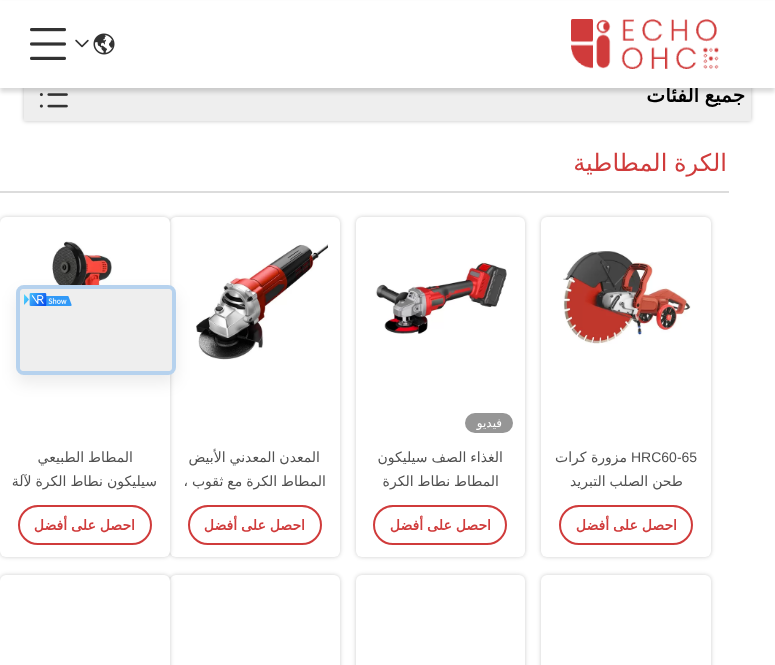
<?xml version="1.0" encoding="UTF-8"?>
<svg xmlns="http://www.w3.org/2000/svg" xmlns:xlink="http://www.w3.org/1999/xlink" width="775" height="665">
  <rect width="100%" height="100%" fill="#ffffff" />
  <rect x="24" y="69" width="727" height="52" fill="#000000" fill-opacity="0.25" filter="blur(2px)" />
  <rect x="24" y="88" width="727" height="33" fill="#eeeeee" />
  <image x="39" y="93" width="29" height="15" xlink:href="image5.png" />
  <rect y="4" width="775" height="88" fill="#000000" fill-opacity="0.15" filter="blur(2px)" />
  <rect y="191" width="729" height="2" fill="#dcdcdc" />
  <rect x="541" y="217" width="170" height="340" rx="6" fill="#000000" fill-opacity="0.2" filter="blur(2px)" />
  <rect x="541" y="217" width="170" height="340" rx="6" fill="#ffffff" />
  <image x="563" y="251" width="128" height="93" xlink:href="image6.png" />
  <rect x="560" y="506" width="132" height="38" rx="19" fill="none" stroke="#d03b3b" stroke-width="2" />
  <rect x="356" y="217" width="169" height="340" rx="6" fill="#000000" fill-opacity="0.2" filter="blur(2px)" />
  <rect x="356" y="217" width="169" height="340" rx="6" fill="#ffffff" />
  <image x="375" y="261" width="132" height="73" xlink:href="image7.png" />
  <rect x="465" y="413" width="48" height="20" rx="10" fill="#969696" />
  <rect x="374" y="506" width="132" height="38" rx="19" fill="none" stroke="#d03b3b" stroke-width="2" />
  <rect x="170" y="217" width="170" height="340" rx="6" fill="#000000" fill-opacity="0.2" filter="blur(2px)" />
  <rect x="170" y="217" width="170" height="340" rx="6" fill="#ffffff" />
  <image x="196" y="244" width="132" height="116" xlink:href="image8.png" />
  <rect x="189" y="506" width="132" height="38" rx="19" fill="none" stroke="#d03b3b" stroke-width="2" />
  <rect y="217" width="170" height="340" rx="6" fill="#000000" fill-opacity="0.2" filter="blur(2px)" />
  <rect y="217" width="170" height="340" rx="6" fill="#ffffff" />
  <image x="52" y="241" width="60" height="44" xlink:href="image9.png" />
  <rect x="19" y="506" width="132" height="38" rx="19" fill="none" stroke="#d03b3b" stroke-width="2" />
  <rect x="541" y="575" width="170" height="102" rx="6" fill="#000000" fill-opacity="0.2" filter="blur(2px)" />
  <rect x="541" y="575" width="170" height="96" rx="6" fill="#ffffff" />
  <rect x="356" y="575" width="169" height="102" rx="6" fill="#000000" fill-opacity="0.2" filter="blur(2px)" />
  <rect x="356" y="575" width="169" height="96" rx="6" fill="#ffffff" />
  <rect x="170" y="575" width="170" height="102" rx="6" fill="#000000" fill-opacity="0.2" filter="blur(2px)" />
  <rect x="170" y="575" width="170" height="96" rx="6" fill="#ffffff" />
  <rect y="575" width="170" height="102" rx="6" fill="#000000" fill-opacity="0.2" filter="blur(2px)" />
  <rect y="575" width="170" height="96" rx="6" fill="#ffffff" />
  <rect x="16" y="293" width="160" height="90" rx="8" fill="#000000" fill-opacity="0.08" filter="blur(8px)" />
  <rect x="16" y="285" width="160" height="90" rx="8" fill="#eeeeee" />
  <rect x="18" y="287" width="156" height="86" rx="6" fill="none" stroke="#0478ed" stroke-opacity="0.24" stroke-width="4" />
  <rect x="20" y="289" width="152" height="82" rx="4" fill="#eeeeee" />
  <image x="24" y="293" width="48" height="13" xlink:href="image10.png" />
  <text x="745" y="102" word-spacing="-1" style="font-family: DejaVu Sans; font-size: 20px; font-weight: bold; direction: rtl; fill: #000000">جميع الفئات</text>
  <rect y="1" width="775" height="87" fill="#ffffff" />
  <image x="571" y="19" width="148" height="50" xlink:href="image1.png" />
  <image x="75" y="39" width="14" height="9" xlink:href="image3.png" />
  <image x="93" y="33" width="22" height="22" xlink:href="image2.png" />
  <image x="30" y="28" width="36" height="32" xlink:href="image4.png" />
  <text x="727" y="171" word-spacing="-1" style="font-family: DejaVu Sans; font-size: 24px; direction: rtl; fill: #d03b3b">الكرة المطاطية</text>
  <text x="631" y="462" style="font-family: Liberation Sans; font-size: 14px; fill: #505050">HRC60-65</text>
  <text x="627" y="462" style="font-family: DejaVu Sans; font-size: 14px; direction: rtl; fill: #505050">مزورة كرات</text>
  <text x="683" y="486" word-spacing="-0.5" style="font-family: DejaVu Sans; font-size: 14px; direction: rtl; fill: #505050">طحن الصلب التبريد</text>
  <text x="677" y="530" word-spacing="-0.5" style="font-family: DejaVu Sans; font-size: 14px; font-weight: bold; direction: rtl; fill: #d03b3b">احصل على أفضل</text>
  <text x="502" y="427" style="font-family: DejaVu Sans; font-size: 12px; direction: rtl; fill: #ffffff">فيديو</text>
  <text x="503" y="462" word-spacing="-0.5" style="font-family: DejaVu Sans; font-size: 14px; direction: rtl; fill: #505050">الغذاء الصف سيليكون</text>
  <text x="499" y="486" word-spacing="-0.5" style="font-family: DejaVu Sans; font-size: 14px; direction: rtl; fill: #505050">المطاط نطاط الكرة</text>
  <text x="491" y="530" word-spacing="-0.5" style="font-family: DejaVu Sans; font-size: 14px; font-weight: bold; direction: rtl; fill: #d03b3b">احصل على أفضل</text>
  <text x="320" y="462" word-spacing="-0.5" style="font-family: DejaVu Sans; font-size: 14px; direction: rtl; fill: #505050">المعدن المعدني الأبيض</text>
  <text x="326" y="486" word-spacing="-0.5" style="font-family: DejaVu Sans; font-size: 14px; direction: rtl; fill: #505050">المطاط الكرة مع ثقوب ،</text>
  <text x="305" y="530" word-spacing="-0.5" style="font-family: DejaVu Sans; font-size: 14px; font-weight: bold; direction: rtl; fill: #d03b3b">احصل على أفضل</text>
  <text x="133" y="462" word-spacing="-0.5" style="font-family: DejaVu Sans; font-size: 14px; direction: rtl; fill: #505050">المطاط الطبيعي</text>
  <text x="157" y="486" word-spacing="-0.5" style="font-family: DejaVu Sans; font-size: 14px; direction: rtl; fill: #505050">سيليكون نطاط الكرة لآلة</text>
  <text x="135" y="530" word-spacing="-0.5" style="font-family: DejaVu Sans; font-size: 14px; font-weight: bold; direction: rtl; fill: #d03b3b">احصل على أفضل</text>
</svg>
